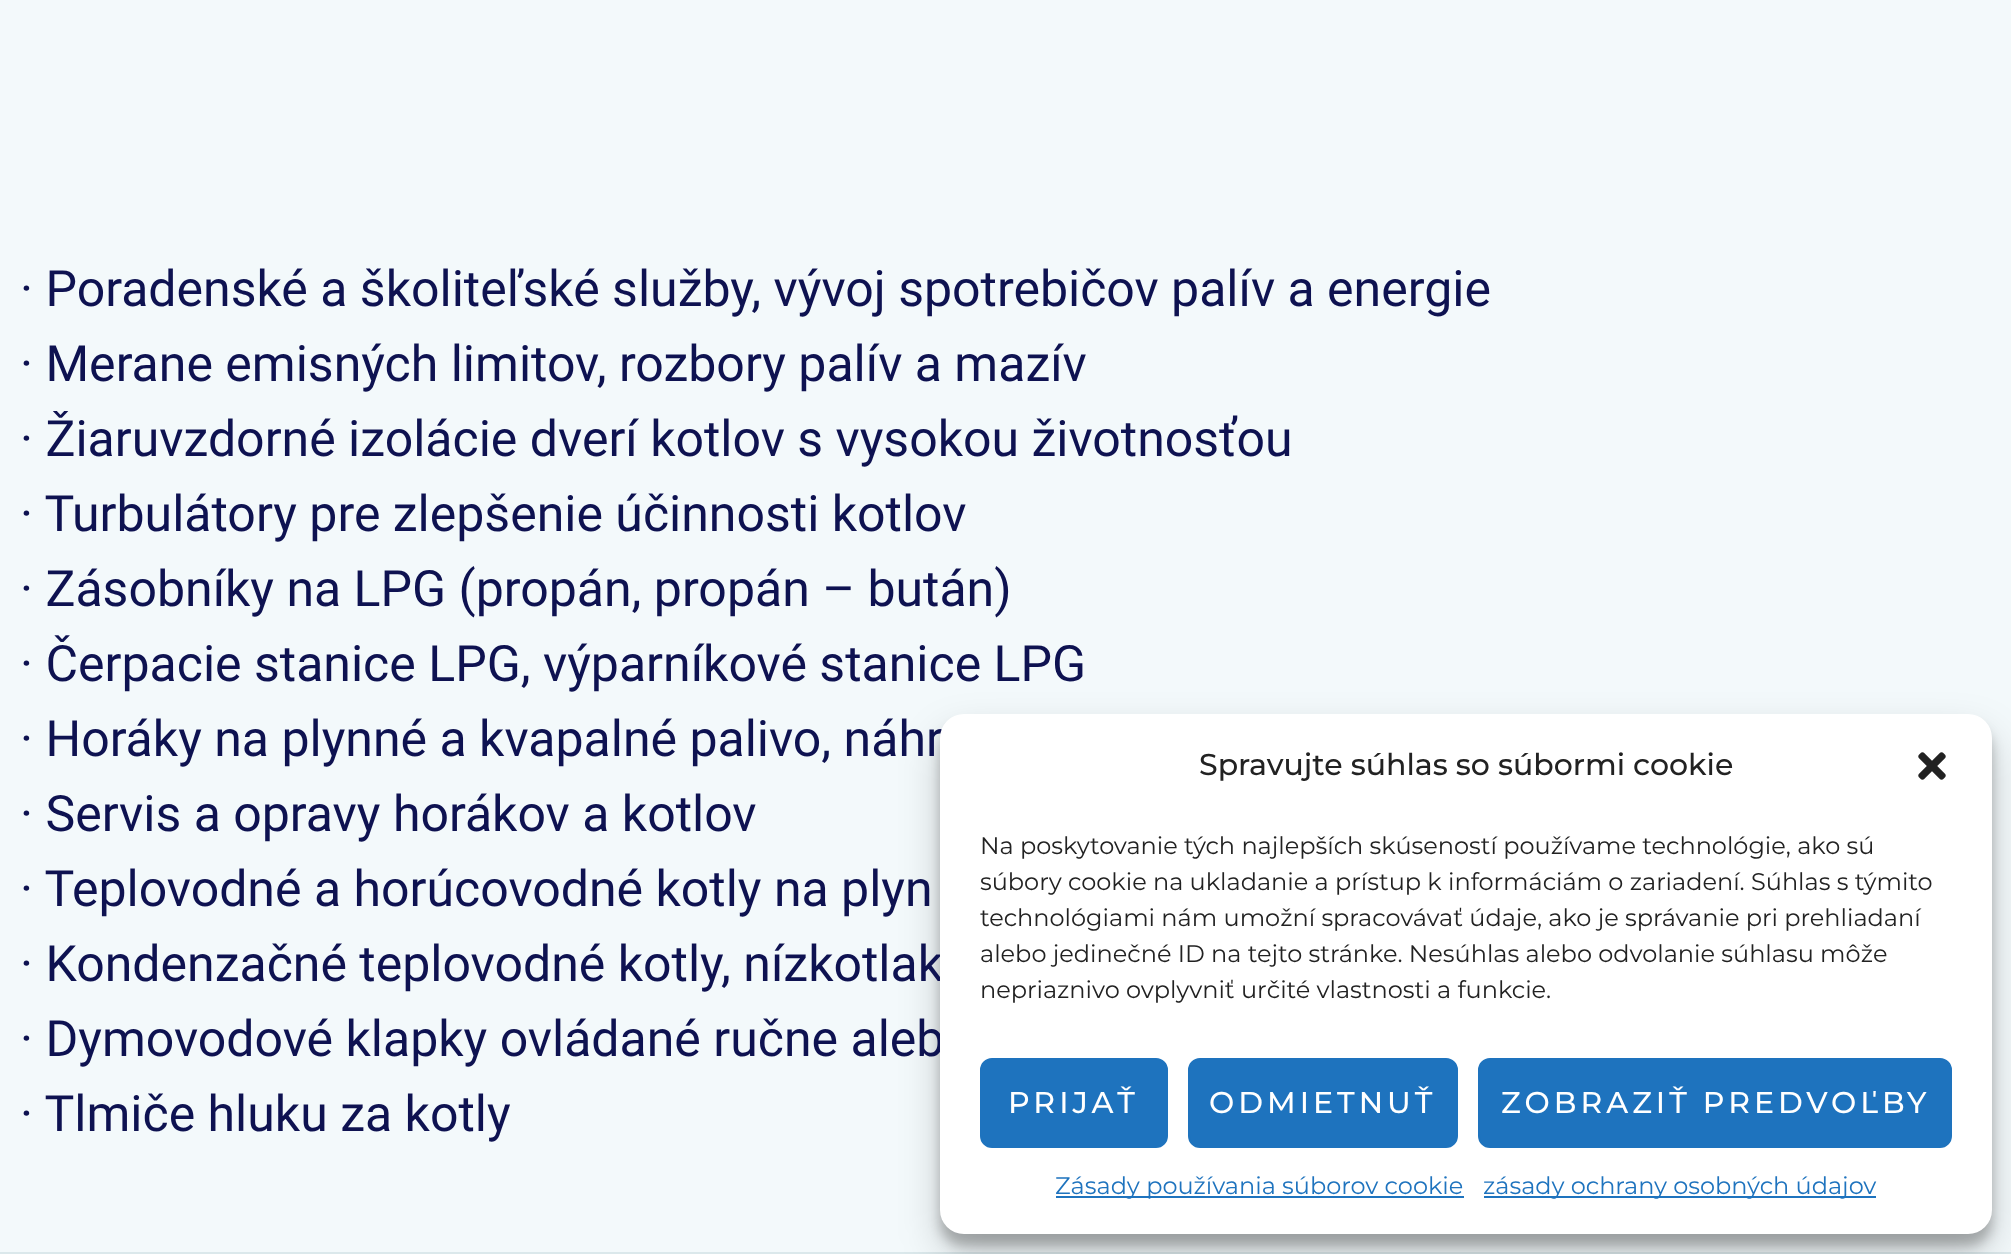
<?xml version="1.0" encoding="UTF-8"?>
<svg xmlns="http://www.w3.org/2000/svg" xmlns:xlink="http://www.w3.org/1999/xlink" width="2011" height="1254">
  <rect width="100%" height="100%" fill="#f3f9fb" />
  <rect y="1252" width="2011" height="2" fill="#dbe8eb" />
  <rect x="940" y="726" width="1052" height="520" rx="24" fill="#000000" fill-opacity="0.23" filter="blur(6px)" />
  <rect x="940" y="734" width="1052" height="520" rx="24" fill="#000000" fill-opacity="0.19" filter="blur(20px)" />
  <text x="20" y="306" style="font-family: Roboto; font-size: 50px; fill: #0e1251">· Poradenské a školiteľské služby, vývoj spotrebičov palív a energie</text>
  <text x="20" y="381" style="font-family: Roboto; font-size: 50px; fill: #0e1251">· Merane emisných limitov, rozbory palív a mazív</text>
  <text x="20" y="456" style="font-family: Roboto; font-size: 50px; fill: #0e1251">· Žiaruvzdorné izolácie dverí kotlov s vysokou životnosťou</text>
  <text x="20" y="531" style="font-family: Roboto; font-size: 50px; fill: #0e1251">· Turbulátory pre zlepšenie účinnosti kotlov</text>
  <text x="20" y="606" style="font-family: Roboto; font-size: 50px; fill: #0e1251">· Zásobníky na LPG (propán, propán – bután)</text>
  <text x="20" y="681" style="font-family: Roboto; font-size: 50px; fill: #0e1251">· Čerpacie stanice LPG, výparníkové stanice LPG</text>
  <text x="20" y="756" style="font-family: Roboto; font-size: 50px; fill: #0e1251">· Horáky na plynné a kvapalné palivo, náhr</text>
  <text x="20" y="831" style="font-family: Roboto; font-size: 50px; fill: #0e1251">· Servis a opravy horákov a kotlov</text>
  <text x="20" y="906" style="font-family: Roboto; font-size: 50px; fill: #0e1251">· Teplovodné a horúcovodné kotly na plyn</text>
  <text x="20" y="981" style="font-family: Roboto; font-size: 50px; fill: #0e1251">· Kondenzačné teplovodné kotly, nízkotlak</text>
  <text x="20" y="1056" style="font-family: Roboto; font-size: 50px; fill: #0e1251">· Dymovodové klapky ovládané ručne aleb</text>
  <text x="20" y="1131" style="font-family: Roboto; font-size: 50px; fill: #0e1251">· Tlmiče hluku za kotly</text>
  <rect x="940" y="714" width="1052" height="520" rx="24" fill="#ffffff" />
  <text x="1199" y="775" style="font-family: Montserrat; font-size: 30px; font-weight: 500; fill: #222222">Spravujte súhlas so súbormi cookie</text>
  <image x="1918" y="752" width="28" height="28" xlink:href="image1.png" />
  <text x="980" y="854" style="font-family: Montserrat; font-size: 24px; fill: #222222">Na poskytovanie tých najlepších skúseností používame technológie, ako sú</text>
  <text x="980" y="890" style="font-family: Montserrat; font-size: 24px; fill: #222222">súbory cookie na ukladanie a prístup k informáciám o zariadení. Súhlas s týmito</text>
  <text x="980" y="926" style="font-family: Montserrat; font-size: 24px; fill: #222222">technológiami nám umožní spracovávať údaje, ako je správanie pri prehliadaní</text>
  <text x="980" y="962" style="font-family: Montserrat; font-size: 24px; fill: #222222">alebo jedinečné ID na tejto stránke. Nesúhlas alebo odvolanie súhlasu môže</text>
  <text x="980" y="998" style="font-family: Montserrat; font-size: 24px; fill: #222222">nepriaznivo ovplyvniť určité vlastnosti a funkcie.</text>
  <rect x="981" y="1059" width="186" height="88" rx="11" fill="#1e73be" stroke="#1e73be" stroke-width="2" />
  <text x="1008" y="1113" style="font-family: Montserrat; font-size: 30px; font-weight: 500; letter-spacing: 4px; fill: #ffffff">PRIJAŤ</text>
  <rect x="1189" y="1059" width="268" height="88" rx="11" fill="#1e73be" stroke="#1e73be" stroke-width="2" />
  <text x="1209" y="1113" style="font-family: Montserrat; font-size: 30px; font-weight: 500; letter-spacing: 4px; fill: #ffffff">ODMIETNUŤ</text>
  <rect x="1479" y="1059" width="472" height="88" rx="11" fill="#1e73be" stroke="#1e73be" stroke-width="2" />
  <text x="1501" y="1113" style="font-family: Montserrat; font-size: 30px; font-weight: 500; letter-spacing: 4px; fill: #ffffff">ZOBRAZIŤ PREDVOĽBY</text>
  <rect x="1056" y="1196" width="408" height="2" fill="#1e73be" />
  <text x="1055" y="1194" style="font-family: Montserrat; font-size: 24px; fill: #1e73be">Zásady používania súborov cookie</text>
  <rect x="1484" y="1196" width="392" height="2" fill="#1e73be" />
  <text x="1483" y="1194" style="font-family: Montserrat; font-size: 24px; fill: #1e73be">zásady ochrany osobných údajov</text>
</svg>
